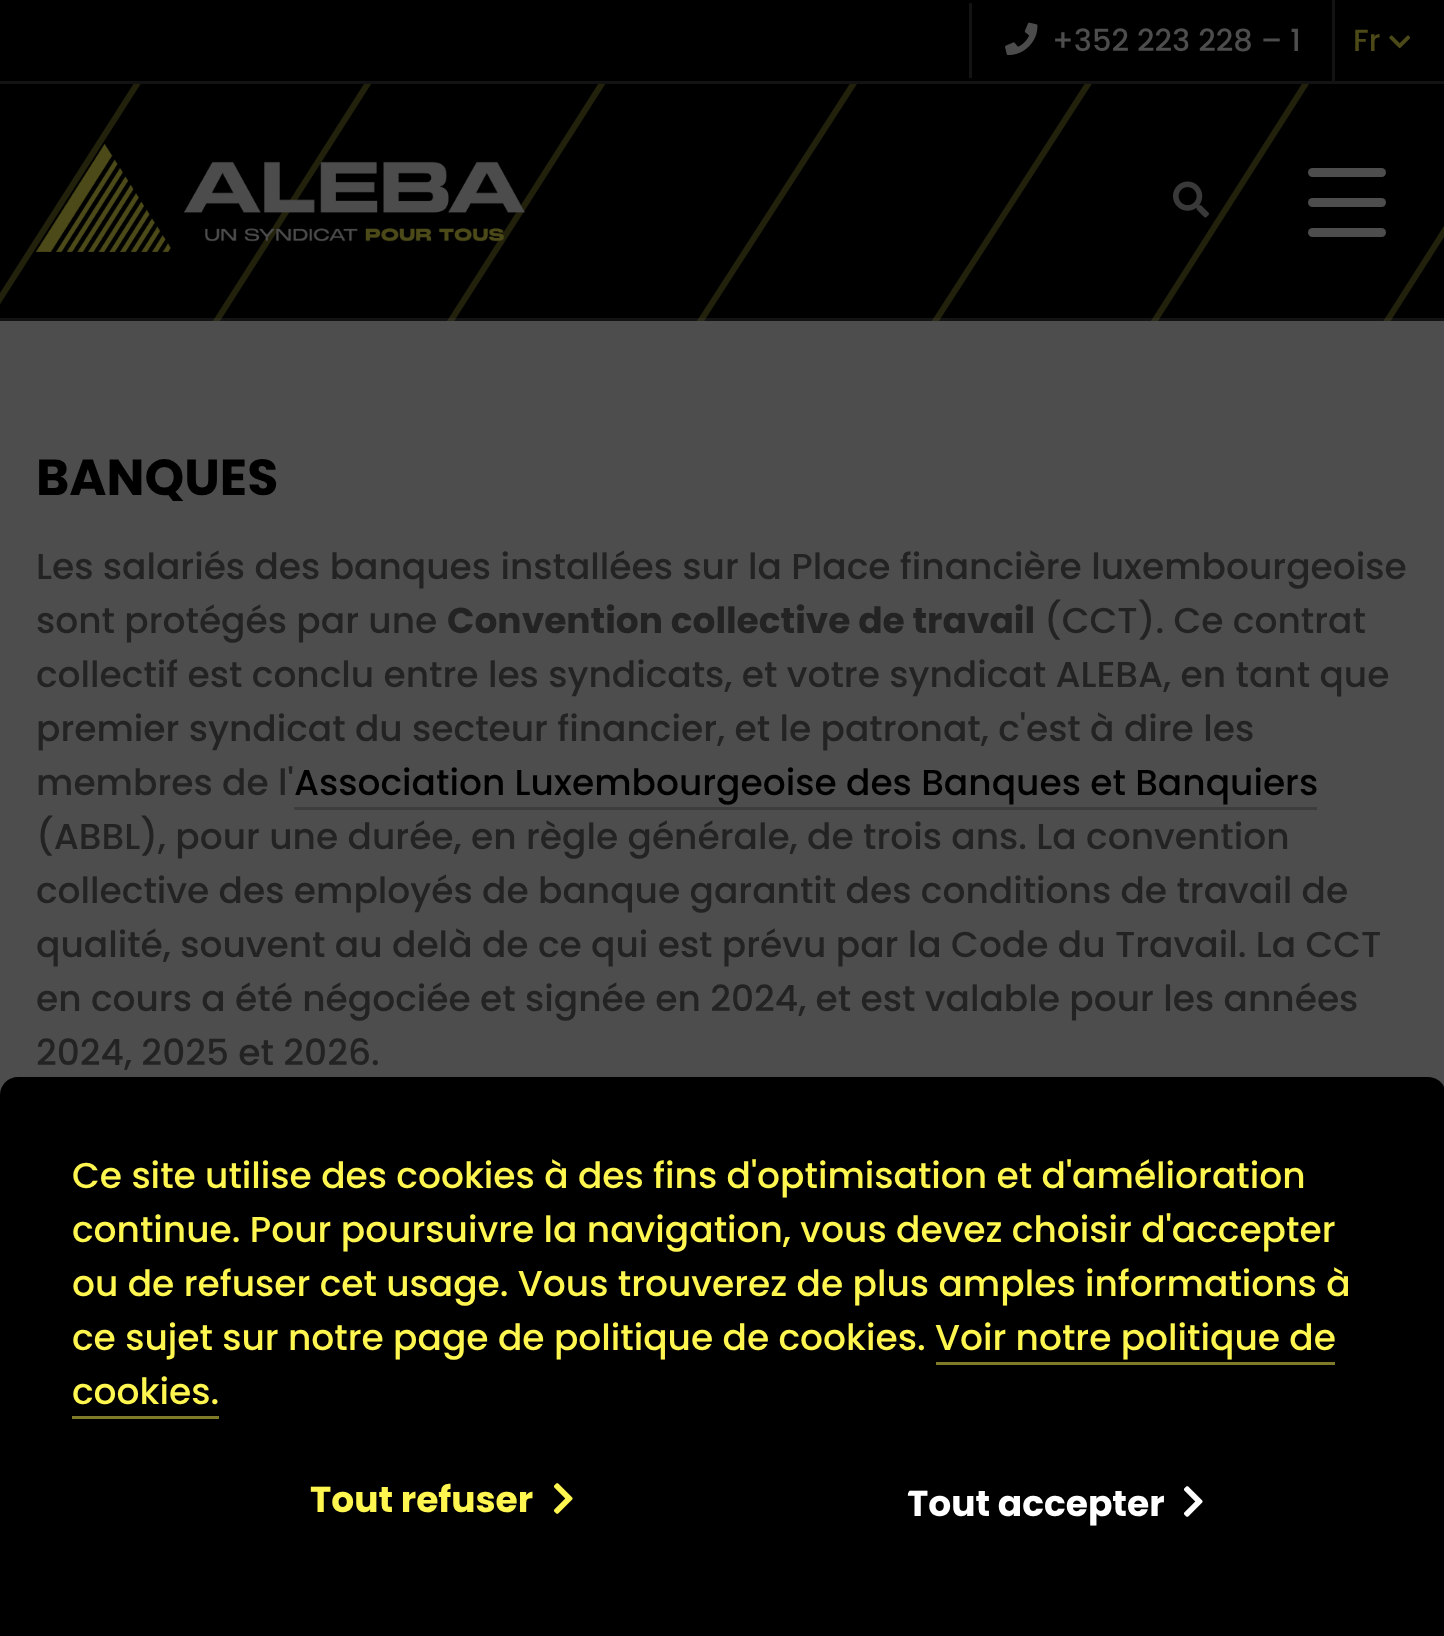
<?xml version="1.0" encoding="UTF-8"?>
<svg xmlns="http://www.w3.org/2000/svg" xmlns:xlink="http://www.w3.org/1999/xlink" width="1444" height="1636">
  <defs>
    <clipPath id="clip1"><rect x="906" y="1479" width="300" height="48" rx="24" /></clipPath>
  </defs>
  <rect width="100%" height="100%" fill="#4d4d4d" />
  <rect y="84" width="1444" height="237" fill="#000000" />
  <image x="0" y="84" width="1444" height="237" xlink:href="image1.png" />
  <rect width="1444" height="81" fill="#000000" />
  <rect y="81" width="1444" height="3" fill="#131313" />
  <rect x="969" y="3" width="3" height="75" fill="#131313" />
  <image x="1005" y="22" width="33" height="34" xlink:href="image2.png" />
  <rect x="1332" width="3" height="81" fill="#131313" />
  <image x="1389" y="35" width="22" height="14" xlink:href="image3.png" />
  <rect y="318" width="1444" height="3" fill="#4d4d4d" fill-opacity="0.25" />
  <image x="36" y="144" width="489" height="108" xlink:href="image4.png" />
  <image x="1173" y="181" width="36" height="37" xlink:href="image5.png" />
  <rect x="1308" y="168" width="78" height="9" rx="4.5" fill="#4d4d4d" />
  <rect x="1308" y="198" width="78" height="9" rx="4.5" fill="#4d4d4d" />
  <rect x="1308" y="228" width="78" height="9" rx="4.5" fill="#4d4d4d" />
  <rect x="294" y="807" width="1023" height="3" fill="#3d3d3d" />
  <path d="M 18 1077 h 1410 c 10 0 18 8 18 18 v 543 h -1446 v -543 c 0 -10 8 -18 18 -18 z" fill="#000000" />
  <rect x="936" y="1362" width="399" height="3" fill="#807b28" />
  <rect x="72" y="1416" width="147" height="3" fill="#807b28" />
  <image x="553" y="1483" width="20" height="31" xlink:href="image6.png" />
  <image x="1183" y="1486" width="20" height="31" xlink:href="image7.png" />
  <text x="1052" y="51" style="font-family: Poppins; font-size: 30.5px; font-weight: 500; fill: #4d4d4d">+352 223 228 – 1</text>
  <text x="1353" y="51" style="font-family: Poppins; font-size: 30.5px; font-weight: 500; fill: #4d4a18">Fr</text>
  <text x="36" y="495" style="font-family: Poppins; font-size: 50.5px; font-weight: bold; fill: #000000">BANQUES</text>
  <text x="36" y="579" style="font-family: Poppins; font-size: 36px; font-weight: 500; fill: #232323">Les salariés des banques installées sur la Place financière luxembourgeoise</text>
  <text x="36" y="633" style="font-family: Poppins; font-size: 36px; font-weight: 500; fill: #232323">sont protégés par une</text>
  <text x="447" y="633" style="font-family: Poppins; font-size: 36px; font-weight: bold; fill: #232323">Convention collective de travail</text>
  <text x="1044" y="633" style="font-family: Poppins; font-size: 36px; font-weight: 500; fill: #232323">(CCT). Ce contrat</text>
  <text x="36" y="687" style="font-family: Poppins; font-size: 36px; font-weight: 500; fill: #232323">collectif est conclu entre les syndicats, et votre syndicat ALEBA, en tant que</text>
  <text x="36" y="741" style="font-family: Poppins; font-size: 36px; font-weight: 500; fill: #232323">premier syndicat du secteur financier, et le patronat, c'est à dire les</text>
  <text x="36" y="795" style="font-family: Poppins; font-size: 36px; font-weight: 500; fill: #232323">membres de l'</text>
  <text x="294" y="795" style="font-family: Poppins; font-size: 36px; font-weight: 500; fill: #000000">Association Luxembourgeoise des Banques et Banquiers</text>
  <text x="36" y="849" style="font-family: Poppins; font-size: 36px; font-weight: 500; fill: #232323">(ABBL), pour une durée, en règle générale, de trois ans. La convention</text>
  <text x="36" y="903" style="font-family: Poppins; font-size: 36px; font-weight: 500; fill: #232323">collective des employés de banque garantit des conditions de travail de</text>
  <text x="36" y="957" style="font-family: Poppins; font-size: 36px; font-weight: 500; fill: #232323">qualité, souvent au delà de ce qui est prévu par la Code du Travail. La CCT</text>
  <text x="36" y="1011" style="font-family: Poppins; font-size: 36px; font-weight: 500; fill: #232323">en cours a été négociée et signée en 2024, et est valable pour les années</text>
  <text x="36" y="1065" style="font-family: Poppins; font-size: 36px; font-weight: 500; fill: #232323">2024, 2025 et 2026.</text>
  <text x="72" y="1188" style="font-family: Poppins; font-size: 36px; font-weight: 500; fill: #fff650">Ce site utilise des cookies à des fins d'optimisation et d'amélioration</text>
  <text x="72" y="1242" style="font-family: Poppins; font-size: 36px; font-weight: 500; fill: #fff650">continue. Pour poursuivre la navigation, vous devez choisir d'accepter</text>
  <text x="72" y="1296" style="font-family: Poppins; font-size: 36px; font-weight: 500; fill: #fff650">ou de refuser cet usage. Vous trouverez de plus amples informations à</text>
  <text x="72" y="1350" style="font-family: Poppins; font-size: 36px; font-weight: 500; fill: #fff650">ce sujet sur notre page de politique de cookies. Voir notre politique de</text>
  <text x="72" y="1404" style="font-family: Poppins; font-size: 36px; font-weight: 500; fill: #fff650">cookies.</text>
  <text x="310" y="1512" style="font-family: Poppins; font-size: 36px; font-weight: bold; fill: #fff650">Tout refuser</text>
  <g clip-path="url(#clip1)">
    <text x="907" y="1516" style="font-family: Poppins; font-size: 36px; font-weight: bold; fill: #ffffff">Tout accepter</text>
  </g>
</svg>
